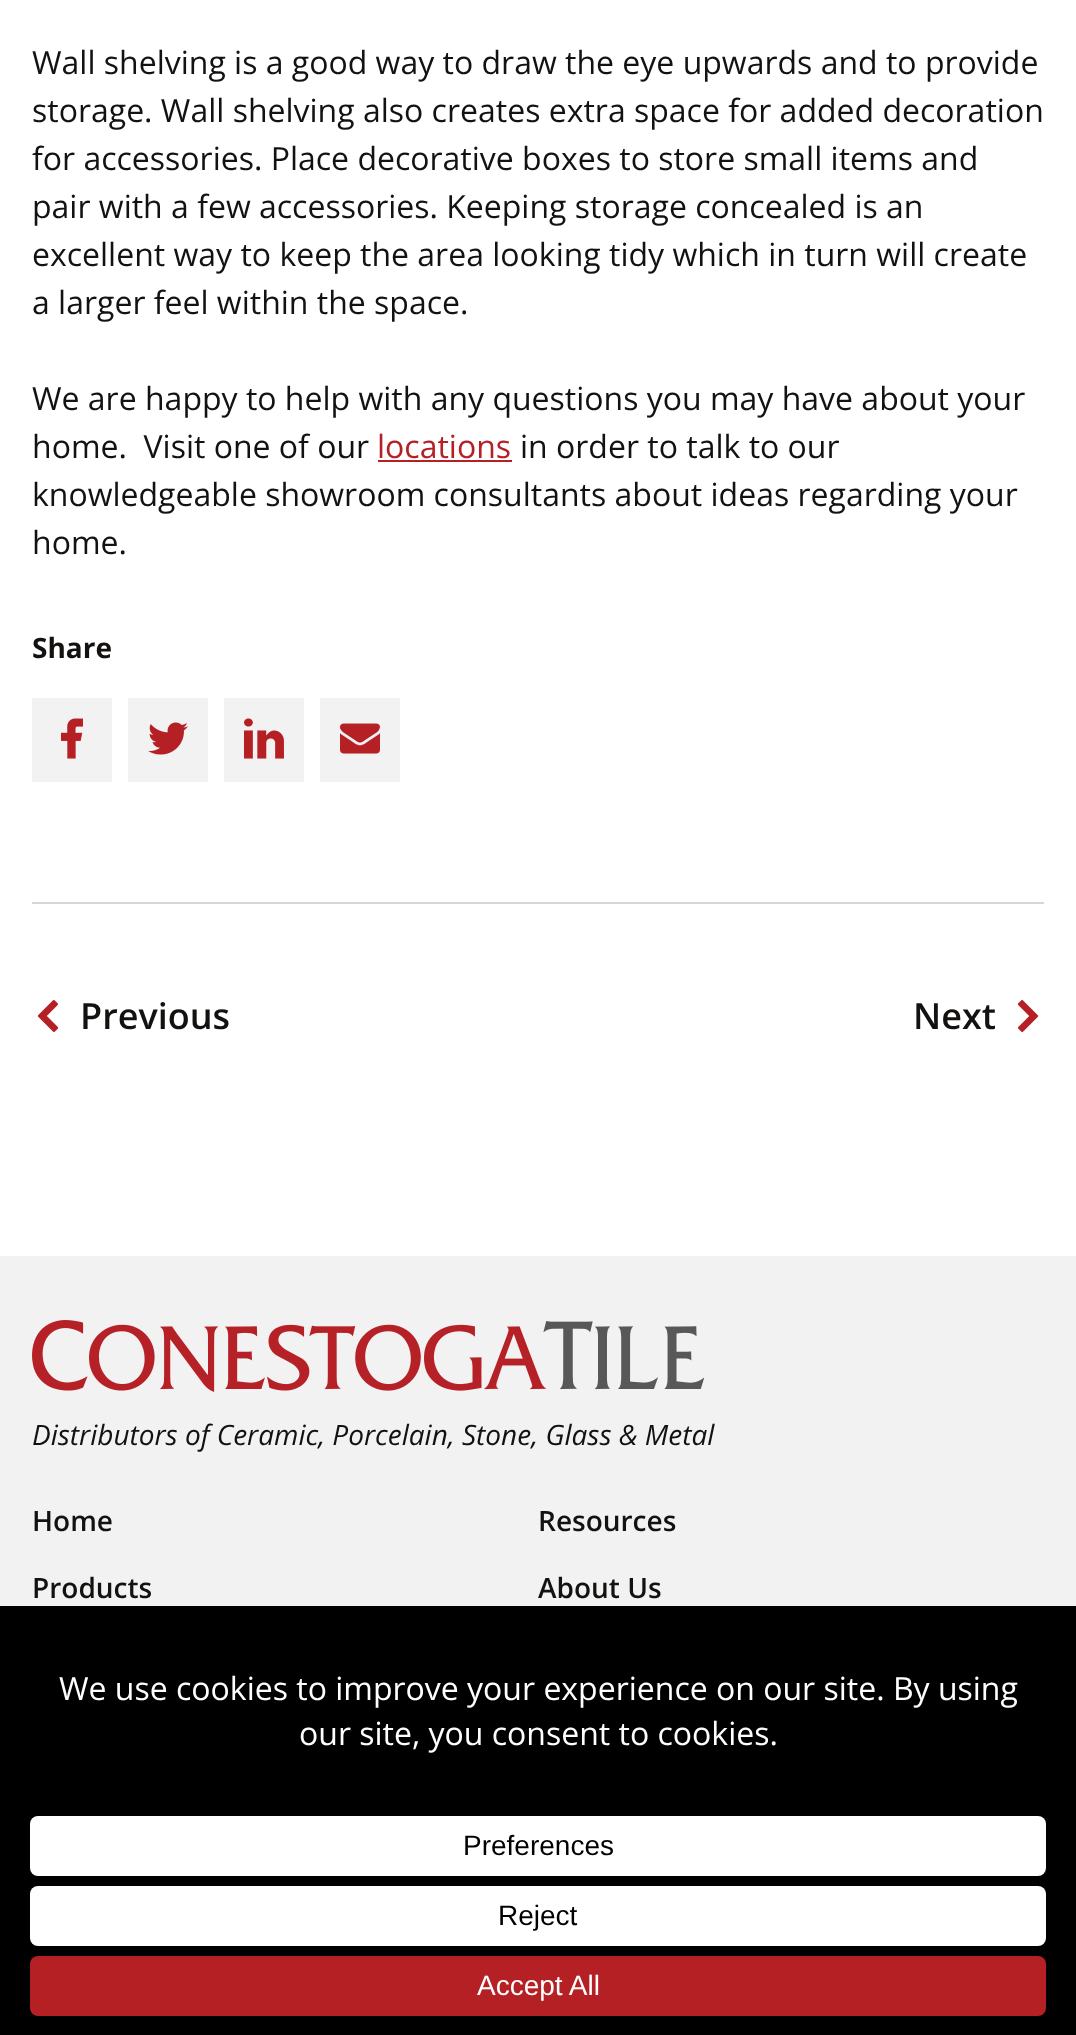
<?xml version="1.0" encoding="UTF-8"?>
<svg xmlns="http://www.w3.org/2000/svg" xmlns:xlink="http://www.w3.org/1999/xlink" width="1076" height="2035">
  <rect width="100%" height="100%" fill="#ffffff" />
  <rect x="378" y="460" width="134" height="2" fill="#b52025" />
  <rect x="32" y="698" width="80" height="84" fill="#f2f2f2" />
  <image x="61" y="718" width="22" height="41" xlink:href="image1.png" />
  <rect x="128" y="698" width="80" height="84" fill="#f2f2f2" />
  <image x="148" y="722" width="40" height="33" xlink:href="image2.png" />
  <rect x="224" y="698" width="80" height="84" fill="#f2f2f2" />
  <image x="244" y="718" width="40" height="41" xlink:href="image3.png" />
  <rect x="320" y="698" width="80" height="84" fill="#f2f2f2" />
  <image x="340" y="723" width="40" height="31" xlink:href="image4.png" />
  <rect x="32" y="902" width="1012" height="2" fill="#d6d6d6" />
  <image x="37" y="1000" width="22" height="32" xlink:href="image5.png" />
  <image x="1017" y="1000" width="22" height="32" xlink:href="image6.png" />
  <rect y="1256" width="1076" height="350" fill="#f2f2f2" />
  <image x="32" y="1320" width="672" height="72" xlink:href="image7.png" />
  <rect y="1606" width="1076" height="429" fill="#000000" />
  <rect x="30" y="1816" width="1016" height="60" rx="8" fill="#ffffff" />
  <rect x="30" y="1886" width="1016" height="60" rx="8" fill="#ffffff" />
  <rect x="30" y="1956" width="1016" height="60" rx="8" fill="#b52025" />
  <text x="32" y="74" style="font-family: Open Sans; font-size: 32px; fill: #141210">Wall shelving is a good way to draw the eye upwards and to provide</text>
  <text x="32" y="122" style="font-family: Open Sans; font-size: 32px; fill: #141210">storage. Wall shelving also creates extra space for added decoration</text>
  <text x="32" y="170" style="font-family: Open Sans; font-size: 32px; fill: #141210">for accessories. Place decorative boxes to store small items and</text>
  <text x="32" y="218" style="font-family: Open Sans; font-size: 32px; fill: #141210">pair with a few accessories. Keeping storage concealed is an</text>
  <text x="32" y="266" style="font-family: Open Sans; font-size: 32px; fill: #141210">excellent way to keep the area looking tidy which in turn will create</text>
  <text x="32" y="314" style="font-family: Open Sans; font-size: 32px; fill: #141210">a larger feel within the space.</text>
  <text x="32" y="410" style="font-family: Open Sans; font-size: 32px; fill: #141210">We are happy to help with any questions you may have about your</text>
  <text x="32" y="458" style="font-family: Open Sans; font-size: 32px; fill: #141210" xml:space="preserve">home.  Visit one of our</text>
  <text x="377" y="458" style="font-family: Open Sans; font-size: 32px; fill: #b52025">locations</text>
  <text x="520" y="458" style="font-family: Open Sans; font-size: 32px; fill: #141210">in order to talk to our</text>
  <text x="32" y="506" style="font-family: Open Sans; font-size: 32px; fill: #141210">knowledgeable showroom consultants about ideas regarding your</text>
  <text x="32" y="554" style="font-family: Open Sans; font-size: 32px; fill: #141210">home.</text>
  <text x="32" y="658" style="font-family: Open Sans; font-size: 28px; font-weight: bold; fill: #141210">Share</text>
  <text x="80" y="1029" style="font-family: Open Sans; font-size: 36px; font-weight: 600; fill: #141210">Previous</text>
  <text x="913" y="1029" style="font-family: Open Sans; font-size: 36px; font-weight: 600; fill: #141210">Next</text>
  <text x="32" y="1445" style="font-family: Open Sans; font-size: 28px; font-style: italic; fill: #141210">Distributors of Ceramic, Porcelain, Stone, Glass &amp; Metal</text>
  <text x="32" y="1531" style="font-family: Open Sans; font-size: 28px; font-weight: 600; fill: #141210">Home</text>
  <text x="538" y="1531" style="font-family: Open Sans; font-size: 28px; font-weight: 600; fill: #141210">Resources</text>
  <text x="32" y="1598" style="font-family: Open Sans; font-size: 28px; font-weight: 600; fill: #141210">Products</text>
  <text x="538" y="1598" style="font-family: Open Sans; font-size: 28px; font-weight: 600; fill: #141210">About Us</text>
  <text x="59" y="1700" style="font-family: Open Sans; font-size: 32px; fill: #ffffff">We use cookies to improve your experience on our site. By using</text>
  <text x="299" y="1745" style="font-family: Open Sans; font-size: 32px; fill: #ffffff">our site, you consent to cookies.</text>
  <text x="463" y="1855" style="font-family: Liberation Sans; font-size: 28px; fill: #000000">Preferences</text>
  <text x="498" y="1925" style="font-family: Liberation Sans; font-size: 28px; fill: #000000">Reject</text>
  <text x="477" y="1995" style="font-family: Liberation Sans; font-size: 28px; fill: #ffffff">Accept All</text>
</svg>
